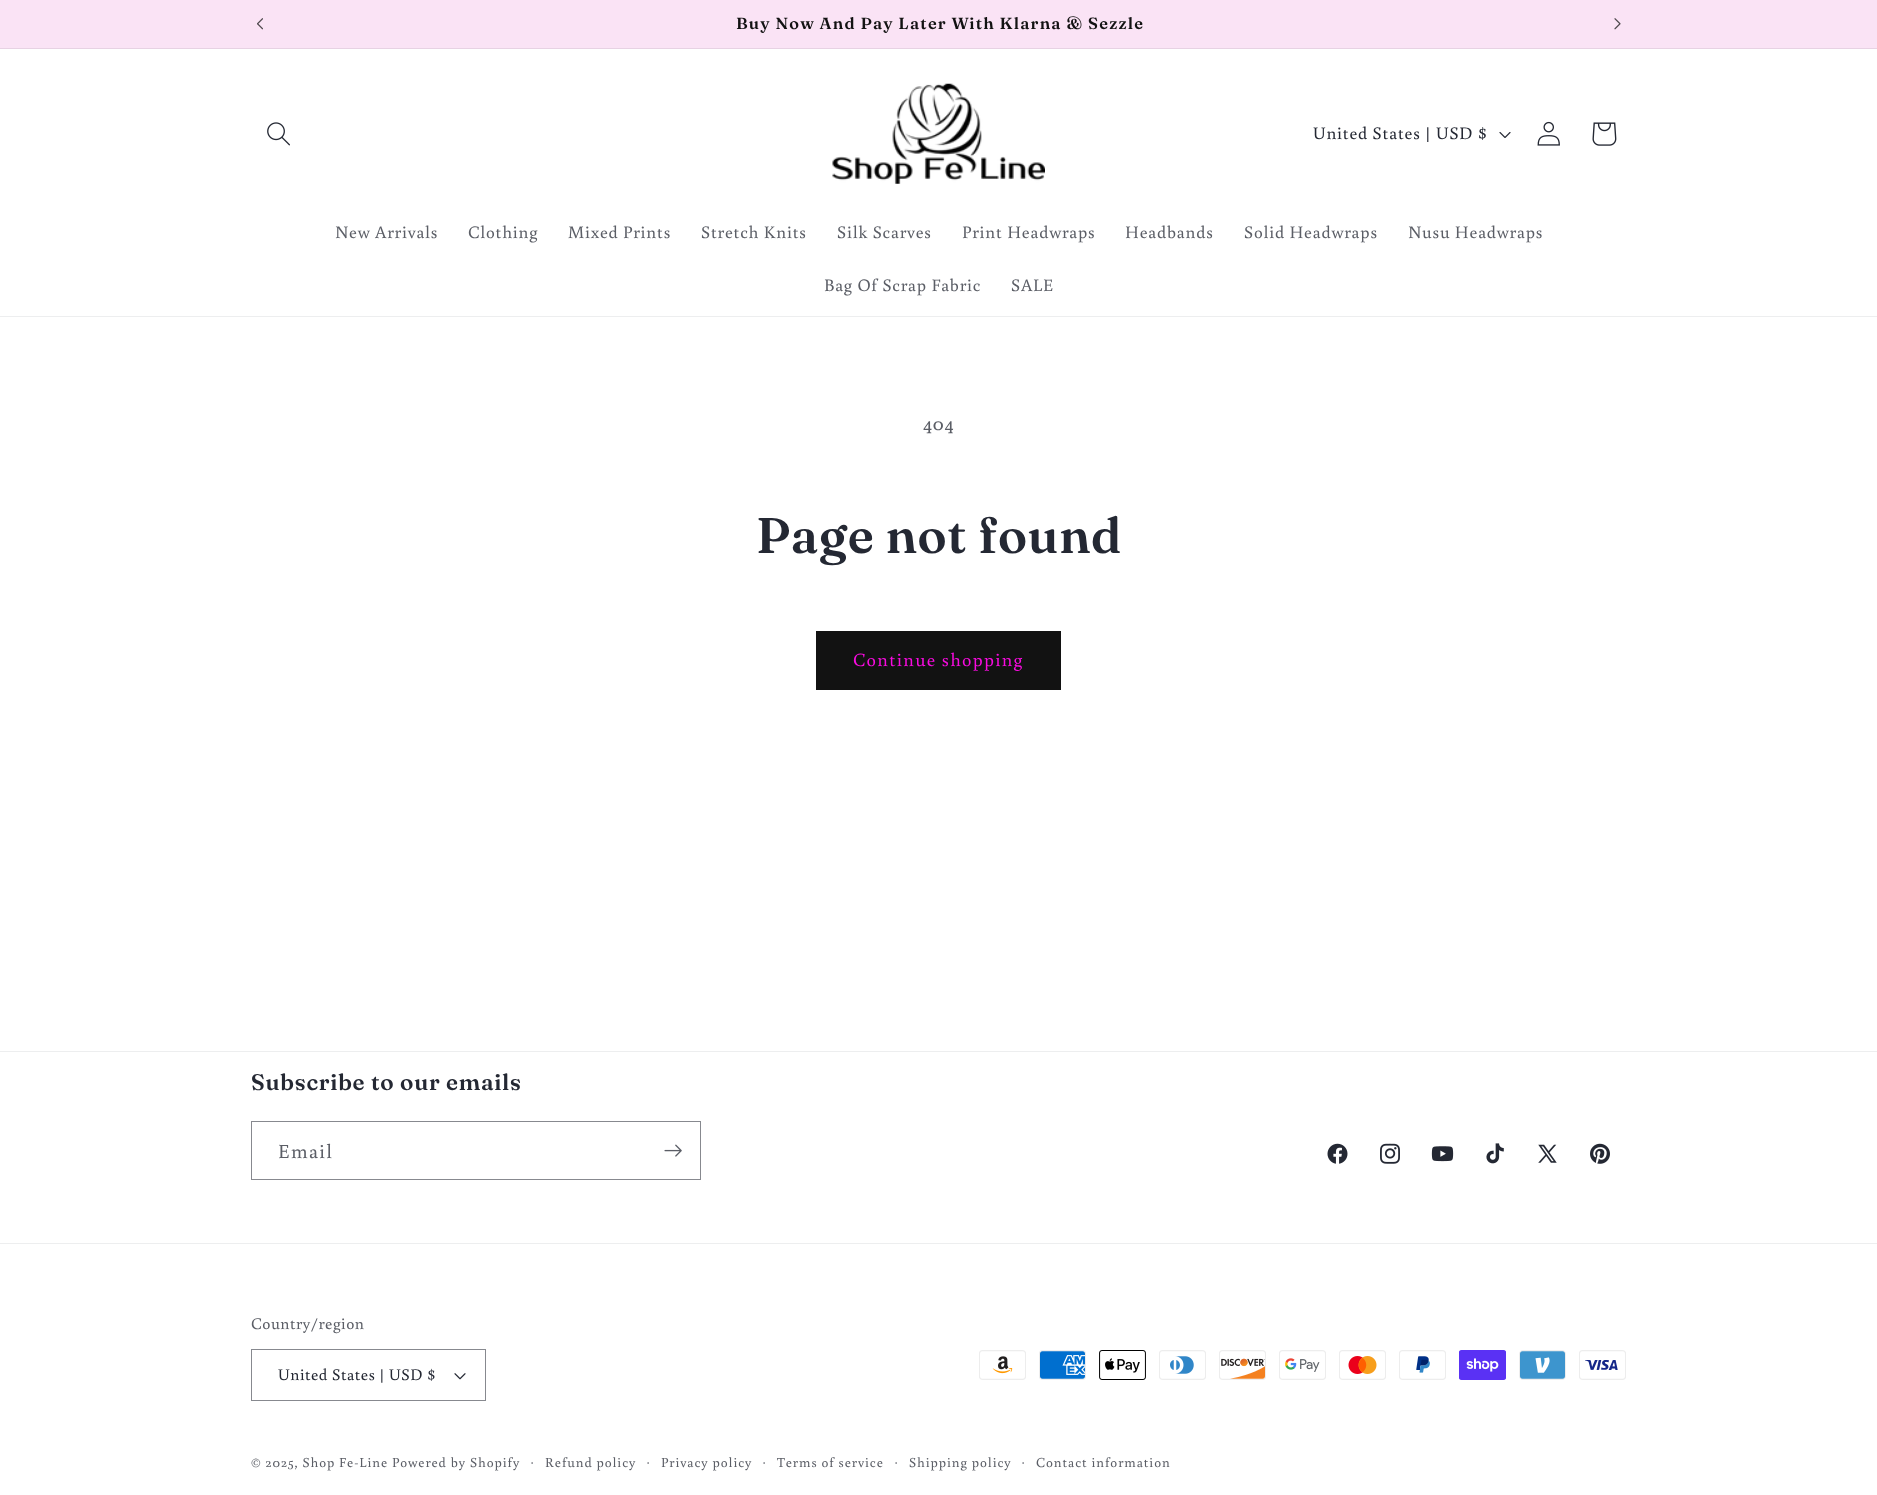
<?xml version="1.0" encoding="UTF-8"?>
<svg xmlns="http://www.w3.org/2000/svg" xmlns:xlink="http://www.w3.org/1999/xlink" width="1877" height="1495">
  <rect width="100%" height="100%" fill="#ffffff" />
  <rect width="1877" height="48" fill="#fae3f5" />
  <rect y="48" width="1877" height="1" fill="#e7d2e3" />
  <image x="257" y="18" width="6" height="12" xlink:href="image1.png" />
  <image x="1614" y="18" width="7" height="12" xlink:href="image2.png" />
  <rect y="316" width="1877" height="1" fill="#edeeef" />
  <image x="267" y="122" width="23" height="24" xlink:href="image3.png" />
  <image x="832" y="83" width="213" height="101" xlink:href="image4.png" />
  <image x="1499" y="132" width="12" height="6" xlink:href="image5.png" />
  <image x="1537" y="121" width="23" height="25" xlink:href="image6.png" />
  <image x="1592" y="122" width="25" height="24" xlink:href="image7.png" />
  <rect x="816" y="631" width="245" height="59" fill="#121212" />
  <rect y="1051" width="1877" height="1" fill="#edeeef" />
  <rect x="251.5" y="1121.5" width="449" height="58" fill="none" stroke="#87898f" />
  <image x="664" y="1144" width="18" height="13" xlink:href="image8.png" />
  <image x="1327" y="1143" width="21" height="21" xlink:href="image9.png" />
  <image x="1380" y="1143" width="20" height="21" xlink:href="image10.png" />
  <image x="1431" y="1146" width="23" height="16" xlink:href="image11.png" />
  <image x="1486" y="1143" width="18" height="21" xlink:href="image12.png" />
  <image x="1538" y="1144" width="19" height="19" xlink:href="image13.png" />
  <image x="1590" y="1143" width="20" height="21" xlink:href="image14.png" />
  <rect y="1243" width="1877" height="1" fill="#edeeef" />
  <image x="454" y="1373" width="12" height="7" xlink:href="image15.png" />
  <rect x="251.5" y="1349.5" width="234" height="51" fill="none" stroke="#87898f" />
  <image x="979" y="1350" width="47" height="30" xlink:href="image16.png" />
  <image x="1039" y="1350" width="47" height="30" xlink:href="image17.png" />
  <image x="1099" y="1350" width="47" height="30" xlink:href="image18.png" />
  <image x="1159" y="1350" width="47" height="30" xlink:href="image19.png" />
  <image x="1219" y="1350" width="47" height="30" xlink:href="image20.png" />
  <image x="1279" y="1350" width="47" height="30" xlink:href="image21.png" />
  <image x="1339" y="1350" width="47" height="30" xlink:href="image22.png" />
  <image x="1399" y="1350" width="47" height="30" xlink:href="image23.png" />
  <image x="1459" y="1350" width="47" height="30" xlink:href="image24.png" />
  <image x="1519" y="1350" width="47" height="30" xlink:href="image25.png" />
  <image x="1579" y="1350" width="47" height="30" xlink:href="image26.png" />
  <text x="736" y="29" word-spacing="-0.25" style="font-family: 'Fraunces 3'; font-size: 16.25px; font-weight: 600; letter-spacing: 1.25px; fill: #121212">Buy Now And Pay Later With Klarna &amp; Sezzle</text>
  <text x="1313" y="139" style="font-family: Buenard; font-size: 17.5px; letter-spacing: 0.75px; fill: #242833">United States | USD $</text>
  <text x="335" y="238" style="font-family: Buenard; font-size: 17.5px; letter-spacing: 0.75px; fill: #5b5e66">New Arrivals</text>
  <text x="468" y="238" style="font-family: Buenard; font-size: 17.5px; letter-spacing: 0.75px; fill: #5b5e66">Clothing</text>
  <text x="568" y="238" style="font-family: Buenard; font-size: 17.5px; letter-spacing: 0.75px; fill: #5b5e66">Mixed Prints</text>
  <text x="701" y="238" style="font-family: Buenard; font-size: 17.5px; letter-spacing: 0.75px; fill: #5b5e66">Stretch Knits</text>
  <text x="837" y="238" style="font-family: Buenard; font-size: 17.5px; letter-spacing: 0.75px; fill: #5b5e66">Silk Scarves</text>
  <text x="962" y="238" style="font-family: Buenard; font-size: 17.5px; letter-spacing: 0.75px; fill: #5b5e66">Print Headwraps</text>
  <text x="1125" y="238" style="font-family: Buenard; font-size: 17.5px; letter-spacing: 0.75px; fill: #5b5e66">Headbands</text>
  <text x="1244" y="238" style="font-family: Buenard; font-size: 17.5px; letter-spacing: 0.75px; fill: #5b5e66">Solid Headwraps</text>
  <text x="1408" y="238" style="font-family: Buenard; font-size: 17.5px; letter-spacing: 0.75px; fill: #5b5e66">Nusu Headwraps</text>
  <text x="824" y="291" style="font-family: Buenard; font-size: 17.5px; letter-spacing: 0.75px; fill: #5b5e66">Bag Of Scrap Fabric</text>
  <text x="1011" y="291" style="font-family: Buenard; font-size: 17.5px; letter-spacing: 0.75px; fill: #5b5e66">SALE</text>
  <text x="923" y="430" style="font-family: Buenard; font-size: 20px; letter-spacing: 0.75px; fill: #5b5e66">404</text>
  <text x="756" y="553" style="font-family: Fraunces; font-size: 50px; font-weight: 600; letter-spacing: 0.75px; fill: #242833">Page not found</text>
  <text x="853" y="666" style="font-family: Buenard; font-size: 18.75px; letter-spacing: 1.25px; fill: #f70bde">Continue shopping</text>
  <text x="251" y="1090" style="font-family: 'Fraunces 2'; font-size: 22.5px; font-weight: 600; letter-spacing: 0.75px; fill: #242833">Subscribe to our emails</text>
  <text x="278" y="1158" style="font-family: Buenard; font-size: 20px; letter-spacing: 1.25px; fill: #5b5e66">Email</text>
  <text x="251" y="1329" style="font-family: Buenard; font-size: 16.25px; letter-spacing: 0.5px; fill: #5b5e66">Country/region</text>
  <text x="278" y="1380" style="font-family: Buenard; font-size: 16.25px; letter-spacing: 0.5px; fill: #242833">United States | USD $</text>
  <text x="251" y="1467" style="font-family: Buenard; font-size: 13.75px; letter-spacing: 0.9px; fill: #5b5e66">© 2025, Shop Fe-Line Powered by Shopify</text>
  <text x="530" y="1467" style="font-family: Buenard; font-size: 15px; letter-spacing: 0.9px; fill: #5b5e66">·</text>
  <text x="545" y="1467" style="font-family: Buenard; font-size: 13.75px; letter-spacing: 0.9px; fill: #5b5e66">Refund policy</text>
  <text x="646" y="1467" style="font-family: Buenard; font-size: 15px; letter-spacing: 0.9px; fill: #5b5e66">·</text>
  <text x="661" y="1467" style="font-family: Buenard; font-size: 13.75px; letter-spacing: 0.9px; fill: #5b5e66">Privacy policy</text>
  <text x="762" y="1467" style="font-family: Buenard; font-size: 15px; letter-spacing: 0.9px; fill: #5b5e66">·</text>
  <text x="777" y="1467" style="font-family: Buenard; font-size: 13.75px; letter-spacing: 0.9px; fill: #5b5e66">Terms of service</text>
  <text x="894" y="1467" style="font-family: Buenard; font-size: 15px; letter-spacing: 0.9px; fill: #5b5e66">·</text>
  <text x="909" y="1467" style="font-family: Buenard; font-size: 13.75px; letter-spacing: 0.9px; fill: #5b5e66">Shipping policy</text>
  <text x="1021" y="1467" style="font-family: Buenard; font-size: 15px; letter-spacing: 0.9px; fill: #5b5e66">·</text>
  <text x="1036" y="1467" style="font-family: Buenard; font-size: 13.75px; letter-spacing: 0.9px; fill: #5b5e66">Contact information</text>
</svg>
